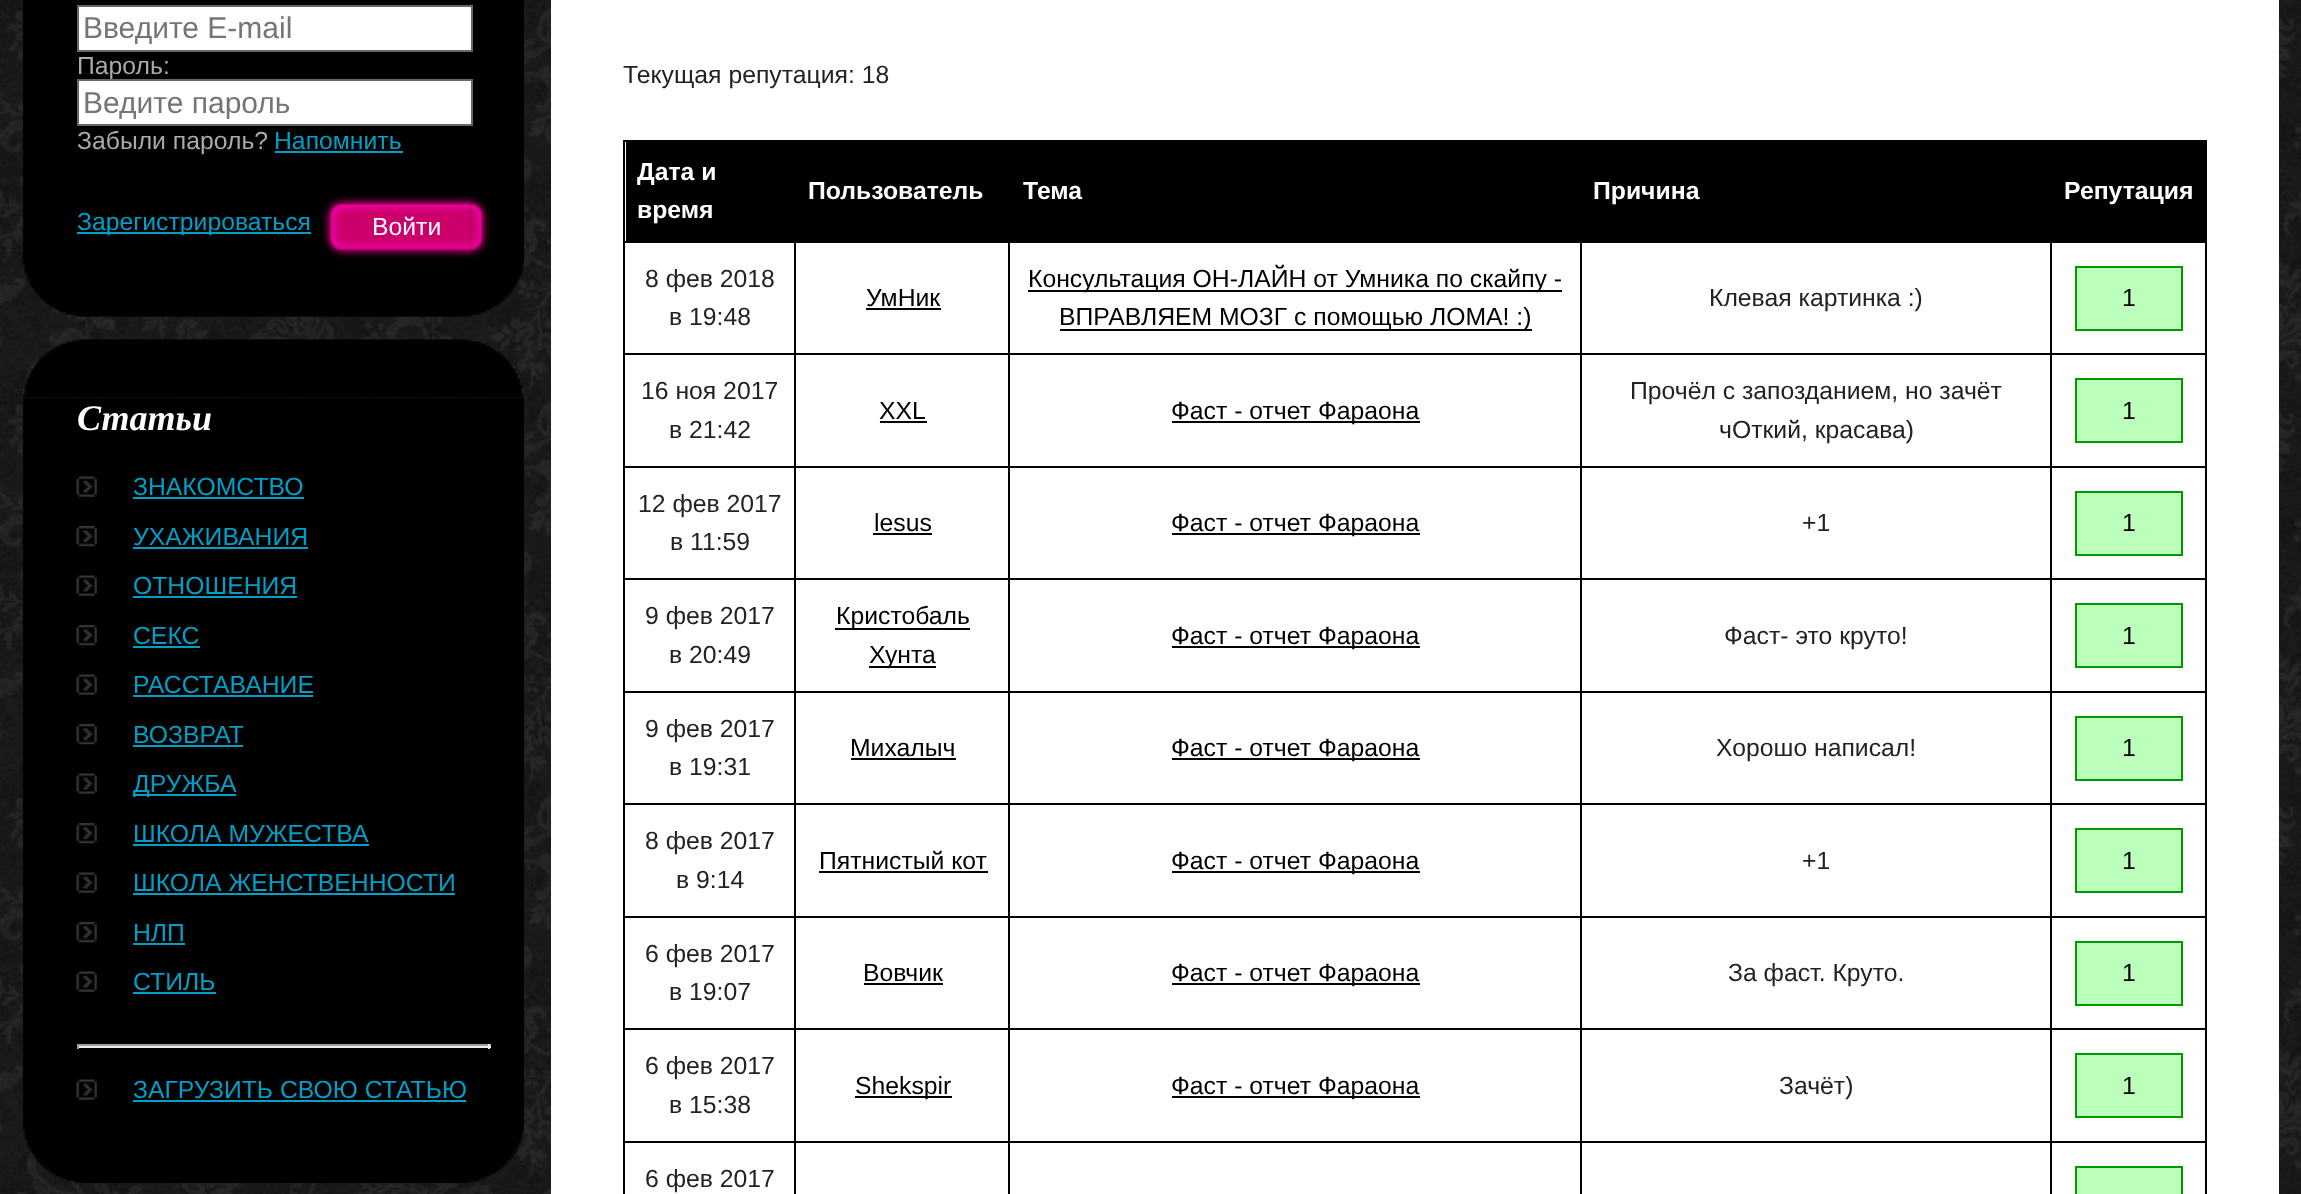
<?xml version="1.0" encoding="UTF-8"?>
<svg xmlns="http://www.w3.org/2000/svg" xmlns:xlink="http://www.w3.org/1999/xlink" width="2301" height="1194">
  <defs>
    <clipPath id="clip1"><rect x="83" y="86" width="383" height="33" /></clipPath>
  </defs>
  <rect width="100%" height="100%" fill="#ffffff" />
  <image x="0" y="0" width="2301" height="1194" xlink:href="image1.png" />
  <rect x="23" width="501" height="259" fill="#000000" />
  <rect x="78" y="6" width="394" height="45" fill="#ffffff" stroke="#666666" stroke-width="2" />
  <rect x="275" y="151" width="128" height="2" fill="#009fc7" />
  <rect x="77" y="232" width="234" height="2" fill="#009fc7" />
  <image x="470" y="195" width="21" height="63" xlink:href="image2.png" />
  <image x="322" y="195" width="149" height="63" xlink:href="image3.png" />
  <image x="22" y="259" width="502" height="58" xlink:href="image4.png" />
  <image x="23" y="339" width="501" height="59" xlink:href="image5.png" />
  <rect x="23" y="398" width="501" height="727" fill="#000000" />
  <image x="76" y="476" width="21" height="21" xlink:href="image6.png" />
  <rect x="133" y="497" width="171" height="2" fill="#009fc7" />
  <image x="76" y="526" width="21" height="21" xlink:href="image7.png" />
  <rect x="133" y="547" width="175" height="2" fill="#009fc7" />
  <image x="76" y="575" width="21" height="21" xlink:href="image8.png" />
  <rect x="133" y="596" width="164" height="2" fill="#009fc7" />
  <image x="76" y="625" width="21" height="21" xlink:href="image7.png" />
  <rect x="133" y="646" width="67" height="2" fill="#009fc7" />
  <image x="76" y="674" width="21" height="21" xlink:href="image6.png" />
  <rect x="133" y="695" width="180" height="2" fill="#009fc7" />
  <image x="76" y="724" width="21" height="21" xlink:href="image7.png" />
  <rect x="133" y="745" width="110" height="2" fill="#009fc7" />
  <image x="76" y="773" width="21" height="21" xlink:href="image6.png" />
  <rect x="133" y="794" width="103" height="2" fill="#009fc7" />
  <image x="76" y="823" width="21" height="21" xlink:href="image7.png" />
  <rect x="133" y="844" width="236" height="2" fill="#009fc7" />
  <image x="76" y="872" width="21" height="21" xlink:href="image6.png" />
  <rect x="133" y="893" width="322" height="2" fill="#009fc7" />
  <image x="76" y="922" width="21" height="21" xlink:href="image7.png" />
  <rect x="133" y="943" width="52" height="2" fill="#009fc7" />
  <image x="76" y="971" width="21" height="21" xlink:href="image6.png" />
  <rect x="133" y="992" width="83" height="2" fill="#009fc7" />
  <rect x="77" y="1044" width="414" height="2" fill="#9f9f9f" />
  <rect x="488" y="1044" width="2" height="5" fill="#eeeeee" />
  <rect x="77" y="1046" width="414" height="2" fill="#eeeeee" />
  <rect x="77" y="1044" width="2" height="5" fill="#9f9f9f" />
  <image x="76" y="1079" width="21" height="21" xlink:href="image6.png" />
  <rect x="133" y="1100" width="333" height="2" fill="#009fc7" />
  <image x="22" y="1125" width="502" height="58" xlink:href="image9.png" />
  <rect x="551" width="1728" height="1194" fill="#ffffff" />
  <rect x="623" y="140" width="2" height="1054" fill="#000000" />
  <rect x="626" y="142" width="171" height="99" fill="#000000" />
  <rect x="797" y="142" width="1410" height="101" fill="#000000" />
  <rect x="623" y="140" width="1584" height="2" fill="#000000" />
  <rect x="623" y="241" width="174" height="2" fill="#000000" />
  <rect x="623" y="353" width="1584" height="2" fill="#000000" />
  <rect x="623" y="466" width="1584" height="2" fill="#000000" />
  <rect x="623" y="578" width="1584" height="2" fill="#000000" />
  <rect x="623" y="691" width="1584" height="2" fill="#000000" />
  <rect x="623" y="803" width="1584" height="2" fill="#000000" />
  <rect x="623" y="916" width="1584" height="2" fill="#000000" />
  <rect x="623" y="1028" width="1584" height="2" fill="#000000" />
  <rect x="623" y="1141" width="1584" height="2" fill="#000000" />
  <rect x="794" y="1141" width="2" height="53" fill="#000000" />
  <rect x="794" y="1028" width="2" height="115" fill="#000000" />
  <rect x="794" y="916" width="2" height="115" fill="#000000" />
  <rect x="794" y="803" width="2" height="115" fill="#000000" />
  <rect x="794" y="691" width="2" height="115" fill="#000000" />
  <rect x="794" y="578" width="2" height="115" fill="#000000" />
  <rect x="794" y="466" width="2" height="115" fill="#000000" />
  <rect x="794" y="353" width="2" height="115" fill="#000000" />
  <rect x="794" y="241" width="2" height="115" fill="#000000" />
  <rect x="866" y="308" width="75" height="2" fill="#000000" />
  <rect x="1028" y="290" width="534" height="2" fill="#000000" />
  <rect x="1060" y="329" width="472" height="2" fill="#000000" />
  <rect x="2076" y="267" width="106" height="63" fill="#bbffbb" stroke="#009900" stroke-width="2" />
  <rect x="1008" y="1141" width="2" height="53" fill="#000000" />
  <rect x="1008" y="1028" width="2" height="115" fill="#000000" />
  <rect x="1008" y="916" width="2" height="115" fill="#000000" />
  <rect x="1008" y="803" width="2" height="115" fill="#000000" />
  <rect x="1008" y="691" width="2" height="115" fill="#000000" />
  <rect x="1008" y="578" width="2" height="115" fill="#000000" />
  <rect x="1008" y="466" width="2" height="115" fill="#000000" />
  <rect x="1008" y="241" width="2" height="227" fill="#000000" />
  <rect x="880" y="421" width="47" height="2" fill="#000000" />
  <rect x="1580" y="1141" width="2" height="53" fill="#000000" />
  <rect x="1580" y="1028" width="2" height="115" fill="#000000" />
  <rect x="1580" y="916" width="2" height="115" fill="#000000" />
  <rect x="1580" y="803" width="2" height="115" fill="#000000" />
  <rect x="1580" y="691" width="2" height="115" fill="#000000" />
  <rect x="1580" y="578" width="2" height="115" fill="#000000" />
  <rect x="1580" y="466" width="2" height="115" fill="#000000" />
  <rect x="1580" y="241" width="2" height="227" fill="#000000" />
  <rect x="1172" y="421" width="248" height="2" fill="#000000" />
  <rect x="2050" y="1141" width="2" height="53" fill="#000000" />
  <rect x="2050" y="1028" width="2" height="115" fill="#000000" />
  <rect x="2050" y="916" width="2" height="115" fill="#000000" />
  <rect x="2050" y="803" width="2" height="115" fill="#000000" />
  <rect x="2050" y="691" width="2" height="115" fill="#000000" />
  <rect x="2050" y="578" width="2" height="115" fill="#000000" />
  <rect x="2050" y="466" width="2" height="115" fill="#000000" />
  <rect x="2050" y="241" width="2" height="227" fill="#000000" />
  <rect x="2205" y="1141" width="2" height="53" fill="#000000" />
  <rect x="2205" y="1028" width="2" height="115" fill="#000000" />
  <rect x="2205" y="916" width="2" height="115" fill="#000000" />
  <rect x="2205" y="803" width="2" height="115" fill="#000000" />
  <rect x="2205" y="691" width="2" height="115" fill="#000000" />
  <rect x="2205" y="578" width="2" height="115" fill="#000000" />
  <rect x="2205" y="466" width="2" height="115" fill="#000000" />
  <rect x="2205" y="241" width="2" height="227" fill="#000000" />
  <rect x="2076" y="379" width="106" height="63" fill="#bbffbb" stroke="#009900" stroke-width="2" />
  <rect x="873" y="533" width="59" height="2" fill="#000000" />
  <rect x="1172" y="533" width="248" height="2" fill="#000000" />
  <rect x="2076" y="492" width="106" height="63" fill="#bbffbb" stroke="#009900" stroke-width="2" />
  <rect x="835" y="628" width="135" height="2" fill="#000000" />
  <rect x="869" y="666" width="67" height="2" fill="#000000" />
  <rect x="1172" y="646" width="248" height="2" fill="#000000" />
  <rect x="2076" y="604" width="106" height="63" fill="#bbffbb" stroke="#009900" stroke-width="2" />
  <rect x="851" y="758" width="105" height="2" fill="#000000" />
  <rect x="1172" y="758" width="248" height="2" fill="#000000" />
  <rect x="2076" y="717" width="106" height="63" fill="#bbffbb" stroke="#009900" stroke-width="2" />
  <rect x="819" y="871" width="169" height="2" fill="#000000" />
  <rect x="1172" y="871" width="248" height="2" fill="#000000" />
  <rect x="2076" y="829" width="106" height="63" fill="#bbffbb" stroke="#009900" stroke-width="2" />
  <rect x="864" y="983" width="79" height="2" fill="#000000" />
  <rect x="1172" y="983" width="248" height="2" fill="#000000" />
  <rect x="2076" y="942" width="106" height="63" fill="#bbffbb" stroke="#009900" stroke-width="2" />
  <rect x="855" y="1096" width="97" height="2" fill="#000000" />
  <rect x="1172" y="1096" width="248" height="2" fill="#000000" />
  <rect x="2076" y="1054" width="106" height="63" fill="#bbffbb" stroke="#009900" stroke-width="2" />
  <rect x="2076" y="1167" width="106" height="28" fill="#bbffbb" stroke="#009900" stroke-width="2" />
  <text x="83" y="38" style="font-family: Liberation Sans; font-size: 30px; fill: #757575">Введите E-mail</text>
  <text x="77" y="74" style="font-family: Liberation Sans; font-size: 24.75px; fill: #aaaaaa">Пароль:</text>
  <rect x="78" y="80" width="394" height="45" fill="#ffffff" stroke="#666666" stroke-width="2" />
  <g clip-path="url(#clip1)">
    <text x="83" y="113" style="font-family: Liberation Sans; font-size: 30px; fill: #757575">Ведите пароль</text>
  </g>
  <text x="77" y="149" style="font-family: Liberation Sans; font-size: 24.75px; fill: #aaaaaa">Забыли пароль?</text>
  <text x="274" y="149" style="font-family: Liberation Sans; font-size: 24.75px; fill: #009fc7">Напомнить</text>
  <text x="77" y="230" style="font-family: Liberation Sans; font-size: 24.75px; fill: #009fc7">Зарегистрироваться</text>
  <text x="372" y="235" style="font-family: Liberation Sans; font-size: 24.75px; fill: #ffffff">Войти</text>
  <text x="77" y="430" style="font-family: Liberation Serif; font-size: 36px; font-weight: bold; font-style: italic; fill: #ffffff">Статьи</text>
  <text x="133" y="495" style="font-family: Liberation Sans; font-size: 24.75px; fill: #009fc7">ЗНАКОМСТВО</text>
  <text x="133" y="545" style="font-family: Liberation Sans; font-size: 24.75px; fill: #009fc7">УХАЖИВАНИЯ</text>
  <text x="133" y="594" style="font-family: Liberation Sans; font-size: 24.75px; fill: #009fc7">ОТНОШЕНИЯ</text>
  <text x="133" y="644" style="font-family: Liberation Sans; font-size: 24.75px; fill: #009fc7">СЕКС</text>
  <text x="133" y="693" style="font-family: Liberation Sans; font-size: 24.75px; fill: #009fc7">РАССТАВАНИЕ</text>
  <text x="133" y="743" style="font-family: Liberation Sans; font-size: 24.75px; fill: #009fc7">ВОЗВРАТ</text>
  <text x="133" y="792" style="font-family: Liberation Sans; font-size: 24.75px; fill: #009fc7">ДРУЖБА</text>
  <text x="133" y="842" style="font-family: Liberation Sans; font-size: 24.75px; fill: #009fc7">ШКОЛА МУЖЕСТВА</text>
  <text x="133" y="891" style="font-family: Liberation Sans; font-size: 24.75px; fill: #009fc7">ШКОЛА ЖЕНСТВЕННОСТИ</text>
  <text x="133" y="941" style="font-family: Liberation Sans; font-size: 24.75px; fill: #009fc7">НЛП</text>
  <text x="133" y="990" style="font-family: Liberation Sans; font-size: 24.75px; fill: #009fc7">СТИЛЬ</text>
  <text x="133" y="1098" style="font-family: Liberation Sans; font-size: 24.75px; fill: #009fc7">ЗАГРУЗИТЬ СВОЮ СТАТЬЮ</text>
  <text x="623" y="83" style="font-family: Liberation Sans; font-size: 24.75px; fill: #222222">Текущая репутация: 18</text>
  <text x="637" y="180" style="font-family: Liberation Sans; font-size: 24.75px; font-weight: bold; fill: #ffffff">Дата и</text>
  <text x="637" y="218" style="font-family: Liberation Sans; font-size: 24.75px; font-weight: bold; fill: #ffffff">время</text>
  <text x="808" y="199" style="font-family: Liberation Sans; font-size: 24.75px; font-weight: bold; fill: #ffffff">Пользователь</text>
  <text x="1023" y="199" style="font-family: Liberation Sans; font-size: 24.75px; font-weight: bold; fill: #ffffff">Тема</text>
  <text x="1593" y="199" style="font-family: Liberation Sans; font-size: 24.75px; font-weight: bold; fill: #ffffff">Причина</text>
  <text x="2064" y="199" style="font-family: Liberation Sans; font-size: 24.75px; font-weight: bold; fill: #ffffff">Репутация</text>
  <text x="645" y="287" style="font-family: Liberation Sans; font-size: 24.75px; fill: #222222">8 фев 2018</text>
  <text x="669" y="325" style="font-family: Liberation Sans; font-size: 24.75px; fill: #222222">в 19:48</text>
  <text x="866" y="306" style="font-family: Liberation Sans; font-size: 24.75px; fill: #000000">УмНик</text>
  <text x="1028" y="287" style="font-family: Liberation Sans; font-size: 24.75px; fill: #000000">Консультация ОН-ЛАЙН от Умника по скайпу -</text>
  <text x="1059" y="325" style="font-family: Liberation Sans; font-size: 24.75px; fill: #000000">ВПРАВЛЯЕМ МОЗГ с помощью ЛОМА! :)</text>
  <text x="1709" y="306" style="font-family: Liberation Sans; font-size: 24.75px; fill: #222222">Клевая картинка :)</text>
  <text x="2122" y="306" style="font-family: Liberation Sans; font-size: 24.75px; fill: #000000">1</text>
  <text x="641" y="399" style="font-family: Liberation Sans; font-size: 24.75px; fill: #222222">16 ноя 2017</text>
  <text x="669" y="438" style="font-family: Liberation Sans; font-size: 24.75px; fill: #222222">в 21:42</text>
  <text x="879" y="419" style="font-family: Liberation Sans; font-size: 24.75px; fill: #000000">XXL</text>
  <text x="1171" y="419" style="font-family: Liberation Sans; font-size: 24.75px; fill: #000000">Фаст - отчет Фараона</text>
  <text x="1630" y="399" style="font-family: Liberation Sans; font-size: 24.75px; fill: #222222">Прочёл с запозданием, но зачёт</text>
  <text x="1719" y="438" style="font-family: Liberation Sans; font-size: 24.75px; fill: #222222">чОткий, красава)</text>
  <text x="2122" y="419" style="font-family: Liberation Sans; font-size: 24.75px; fill: #000000">1</text>
  <text x="638" y="512" style="font-family: Liberation Sans; font-size: 24.75px; fill: #222222">12 фев 2017</text>
  <text x="670" y="550" style="font-family: Liberation Sans; font-size: 24.75px; fill: #222222">в 11:59</text>
  <text x="874" y="531" style="font-family: Liberation Sans; font-size: 24.75px; fill: #000000">lesus</text>
  <text x="1171" y="531" style="font-family: Liberation Sans; font-size: 24.75px; fill: #000000">Фаст - отчет Фараона</text>
  <text x="1802" y="531" style="font-family: Liberation Sans; font-size: 24.75px; fill: #222222">+1</text>
  <text x="2122" y="531" style="font-family: Liberation Sans; font-size: 24.75px; fill: #000000">1</text>
  <text x="645" y="624" style="font-family: Liberation Sans; font-size: 24.75px; fill: #222222">9 фев 2017</text>
  <text x="669" y="663" style="font-family: Liberation Sans; font-size: 24.75px; fill: #222222">в 20:49</text>
  <text x="836" y="624" style="font-family: Liberation Sans; font-size: 24.75px; fill: #000000">Кристобаль</text>
  <text x="869" y="663" style="font-family: Liberation Sans; font-size: 24.75px; fill: #000000">Хунта</text>
  <text x="1171" y="644" style="font-family: Liberation Sans; font-size: 24.75px; fill: #000000">Фаст - отчет Фараона</text>
  <text x="1724" y="644" style="font-family: Liberation Sans; font-size: 24.75px; fill: #222222">Фаст- это круто!</text>
  <text x="2122" y="644" style="font-family: Liberation Sans; font-size: 24.75px; fill: #000000">1</text>
  <text x="645" y="737" style="font-family: Liberation Sans; font-size: 24.75px; fill: #222222">9 фев 2017</text>
  <text x="669" y="775" style="font-family: Liberation Sans; font-size: 24.75px; fill: #222222">в 19:31</text>
  <text x="850" y="756" style="font-family: Liberation Sans; font-size: 24.75px; fill: #000000">Михалыч</text>
  <text x="1171" y="756" style="font-family: Liberation Sans; font-size: 24.75px; fill: #000000">Фаст - отчет Фараона</text>
  <text x="1716" y="756" style="font-family: Liberation Sans; font-size: 24.75px; fill: #222222">Хорошо написал!</text>
  <text x="2122" y="756" style="font-family: Liberation Sans; font-size: 24.75px; fill: #000000">1</text>
  <text x="645" y="849" style="font-family: Liberation Sans; font-size: 24.75px; fill: #222222">8 фев 2017</text>
  <text x="676" y="888" style="font-family: Liberation Sans; font-size: 24.75px; fill: #222222">в 9:14</text>
  <text x="819" y="869" style="font-family: Liberation Sans; font-size: 24.75px; fill: #000000">Пятнистый кот</text>
  <text x="1171" y="869" style="font-family: Liberation Sans; font-size: 24.75px; fill: #000000">Фаст - отчет Фараона</text>
  <text x="1802" y="869" style="font-family: Liberation Sans; font-size: 24.75px; fill: #222222">+1</text>
  <text x="2122" y="869" style="font-family: Liberation Sans; font-size: 24.75px; fill: #000000">1</text>
  <text x="645" y="962" style="font-family: Liberation Sans; font-size: 24.75px; fill: #222222">6 фев 2017</text>
  <text x="669" y="1000" style="font-family: Liberation Sans; font-size: 24.75px; fill: #222222">в 19:07</text>
  <text x="863" y="981" style="font-family: Liberation Sans; font-size: 24.75px; fill: #000000">Вовчик</text>
  <text x="1171" y="981" style="font-family: Liberation Sans; font-size: 24.75px; fill: #000000">Фаст - отчет Фараона</text>
  <text x="1728" y="981" style="font-family: Liberation Sans; font-size: 24.75px; fill: #222222">За фаст. Круто.</text>
  <text x="2122" y="981" style="font-family: Liberation Sans; font-size: 24.75px; fill: #000000">1</text>
  <text x="645" y="1074" style="font-family: Liberation Sans; font-size: 24.75px; fill: #222222">6 фев 2017</text>
  <text x="669" y="1113" style="font-family: Liberation Sans; font-size: 24.75px; fill: #222222">в 15:38</text>
  <text x="855" y="1094" style="font-family: Liberation Sans; font-size: 24.75px; fill: #000000">Shekspir</text>
  <text x="1171" y="1094" style="font-family: Liberation Sans; font-size: 24.75px; fill: #000000">Фаст - отчет Фараона</text>
  <text x="1779" y="1094" style="font-family: Liberation Sans; font-size: 24.75px; fill: #222222">Зачёт)</text>
  <text x="2122" y="1094" style="font-family: Liberation Sans; font-size: 24.75px; fill: #000000">1</text>
  <text x="645" y="1187" style="font-family: Liberation Sans; font-size: 24.75px; fill: #222222">6 фев 2017</text>
</svg>
